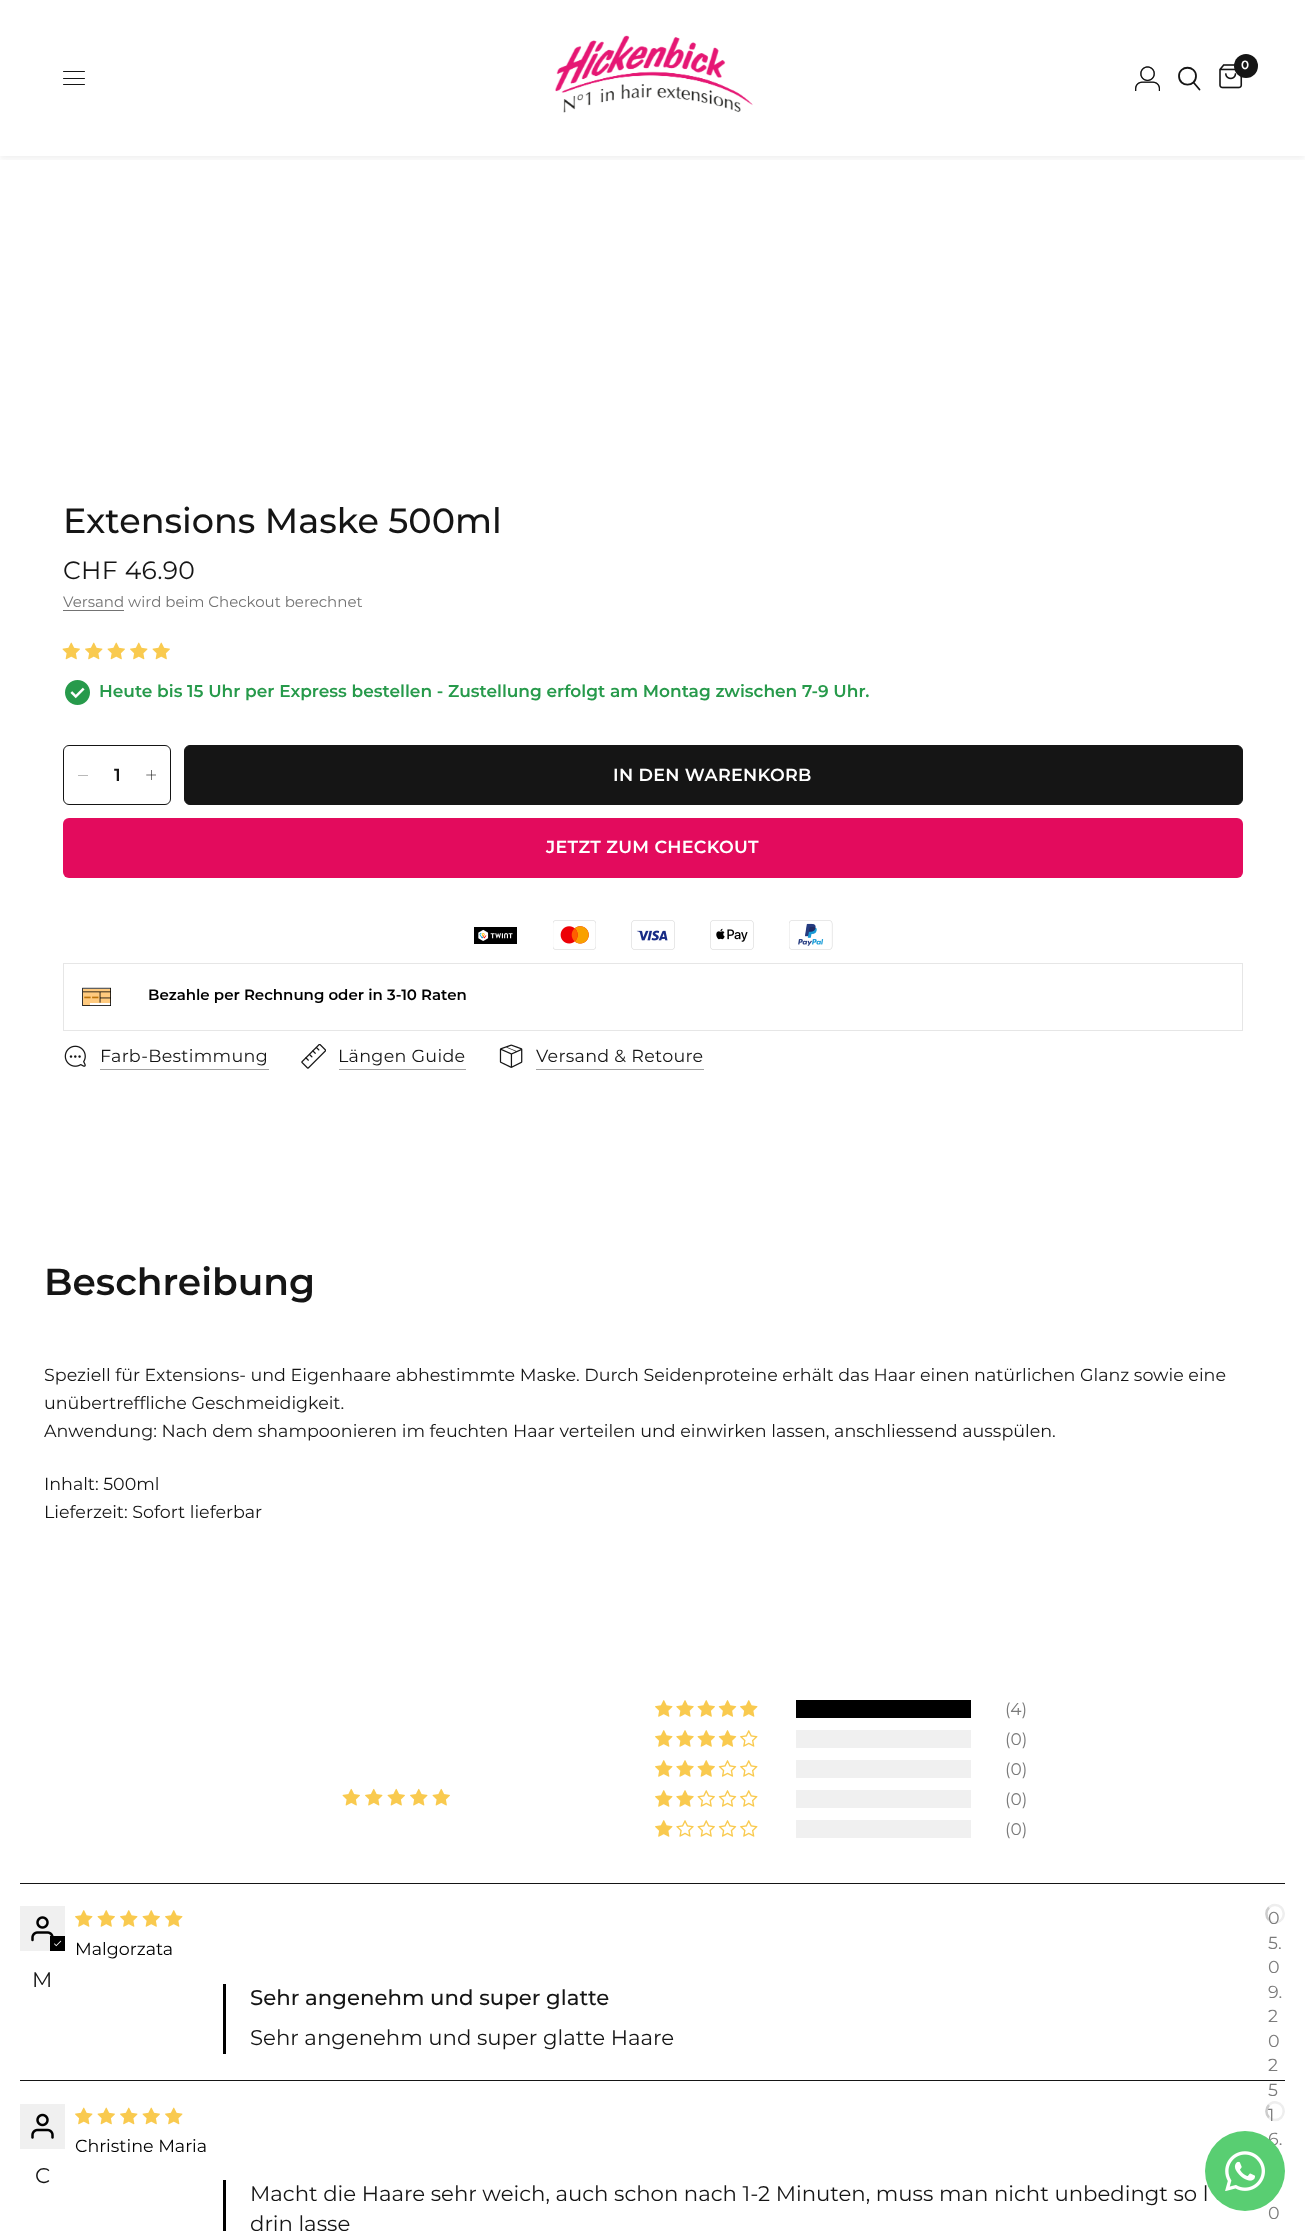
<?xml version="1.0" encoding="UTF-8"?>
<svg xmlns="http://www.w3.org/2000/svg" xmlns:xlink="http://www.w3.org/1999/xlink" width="1305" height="2231">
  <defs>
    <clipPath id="clip1"><rect x="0" y="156" width="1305" height="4" /></clipPath>
  </defs>
  <rect width="100%" height="100%" fill="#ffffff" />
  <g clip-path="url(#clip1)">
    <rect y="3" width="1305" height="156" fill="#000000" fill-opacity="0.06" filter="blur(3px)" />
  </g>
  <image x="555" y="35" width="198" height="78" xlink:href="image1.png" />
  <image x="1219" y="64" width="24" height="25" xlink:href="image2.png" />
  <circle cx="1246" cy="66" r="12" fill="#151515" />
  <image x="1135" y="66" width="25" height="25" xlink:href="image3.png" />
  <path d="M 1194 83 l 5.5 6.5 m -3.5 -13.5 c 0 11.5 -17 11.5 -17 0 c 0 -11 17 -11 17 0 z" fill="none" stroke="#151515" stroke-width="1.8" stroke-linecap="round" stroke-linejoin="round" />
  <rect x="63" y="71" width="22" height="1" rx="0.5" fill="#151515" />
  <rect x="63" y="78" width="22" height="1" rx="0.5" fill="#151515" />
  <rect x="63" y="84" width="22" height="1" rx="0.5" fill="#151515" />
  <rect x="63" y="610" width="61" height="1" fill="#737373" />
  <image x="62" y="642" width="18" height="18" xlink:href="image4.png" />
  <image x="85" y="642" width="18" height="18" xlink:href="image5.png" />
  <image x="107" y="642" width="18" height="18" xlink:href="image4.png" />
  <image x="130" y="642" width="18" height="18" xlink:href="image5.png" />
  <image x="152" y="642" width="18" height="18" xlink:href="image4.png" />
  <image x="65" y="680" width="25" height="25" xlink:href="image6.png" />
  <rect x="63.5" y="745.5" width="107" height="59" rx="5.5" fill="none" stroke="#151515" />
  <rect x="78" y="775" width="10" height="1" fill="#b9b9b9" />
  <image x="146" y="770" width="10" height="10" xlink:href="image7.png" />
  <rect x="184.5" y="745.5" width="1058" height="59" rx="5.5" fill="#151515" stroke="#151515" />
  <rect x="63" y="818" width="1180" height="60" rx="6" fill="#e30b5d" />
  <image x="474" y="927" width="43" height="17" xlink:href="image8.png" />
  <image x="553" y="920" width="43" height="30" xlink:href="image9.png" />
  <image x="631" y="920" width="44" height="30" xlink:href="image10.png" />
  <image x="710" y="920" width="44" height="30" xlink:href="image11.png" />
  <image x="789" y="920" width="44" height="30" xlink:href="image12.png" />
  <rect x="63.5" y="963.5" width="1179" height="67" fill="none" stroke="#e6e6e6" />
  <image x="82" y="987" width="29" height="19" xlink:href="image13.png" />
  <image x="64" y="1045" width="22" height="22" xlink:href="image14.png" />
  <rect x="100" y="1069" width="169" height="1" fill="#a1a1a1" />
  <image x="301" y="1044" width="25" height="25" xlink:href="image15.png" />
  <rect x="339" y="1069" width="127" height="1" fill="#a1a1a1" />
  <image x="499" y="1044" width="24" height="24" xlink:href="image16.png" />
  <rect x="536" y="1069" width="168" height="1" fill="#a1a1a1" />
  <image x="342" y="1788" width="18" height="18" xlink:href="image17.png" />
  <image x="365" y="1788" width="18" height="18" xlink:href="image18.png" />
  <image x="387" y="1788" width="18" height="18" xlink:href="image17.png" />
  <image x="410" y="1788" width="18" height="18" xlink:href="image18.png" />
  <image x="432" y="1788" width="18" height="18" xlink:href="image17.png" />
  <image x="655" y="1700" width="18" height="17" xlink:href="image19.png" />
  <image x="676" y="1700" width="18" height="17" xlink:href="image20.png" />
  <image x="697" y="1700" width="18" height="17" xlink:href="image21.png" />
  <image x="718" y="1700" width="19" height="17" xlink:href="image22.png" />
  <image x="740" y="1700" width="18" height="17" xlink:href="image19.png" />
  <rect x="796" y="1700" width="175" height="18" fill="#000000" />
  <image x="655" y="1730" width="18" height="17" xlink:href="image19.png" />
  <image x="676" y="1730" width="18" height="17" xlink:href="image20.png" />
  <image x="697" y="1730" width="18" height="17" xlink:href="image21.png" />
  <image x="718" y="1730" width="19" height="17" xlink:href="image22.png" />
  <image x="740" y="1730" width="18" height="17" xlink:href="image23.png" />
  <rect x="796" y="1730" width="175" height="18" fill="#f0f0f0" />
  <image x="655" y="1760" width="18" height="17" xlink:href="image19.png" />
  <image x="676" y="1760" width="18" height="17" xlink:href="image20.png" />
  <image x="697" y="1760" width="18" height="17" xlink:href="image21.png" />
  <image x="718" y="1760" width="19" height="17" xlink:href="image24.png" />
  <image x="740" y="1760" width="18" height="17" xlink:href="image23.png" />
  <rect x="796" y="1760" width="175" height="18" fill="#f0f0f0" />
  <image x="655" y="1790" width="18" height="17" xlink:href="image19.png" />
  <image x="676" y="1790" width="18" height="17" xlink:href="image20.png" />
  <image x="697" y="1790" width="18" height="17" xlink:href="image25.png" />
  <image x="718" y="1790" width="19" height="17" xlink:href="image24.png" />
  <image x="740" y="1790" width="18" height="17" xlink:href="image23.png" />
  <rect x="796" y="1790" width="175" height="18" fill="#f0f0f0" />
  <image x="655" y="1820" width="18" height="17" xlink:href="image19.png" />
  <image x="676" y="1820" width="18" height="17" xlink:href="image26.png" />
  <image x="697" y="1820" width="18" height="17" xlink:href="image25.png" />
  <image x="718" y="1820" width="19" height="17" xlink:href="image24.png" />
  <image x="740" y="1820" width="18" height="17" xlink:href="image23.png" />
  <rect x="796" y="1820" width="175" height="18" fill="#f0f0f0" />
  <rect x="20" y="1883" width="1265" height="1" fill="#151515" />
  <image x="75" y="1910" width="18" height="17" xlink:href="image19.png" />
  <image x="97" y="1910" width="18" height="17" xlink:href="image21.png" />
  <image x="120" y="1910" width="18" height="17" xlink:href="image19.png" />
  <image x="142" y="1910" width="18" height="17" xlink:href="image21.png" />
  <image x="165" y="1910" width="18" height="17" xlink:href="image19.png" />
  <path d="M 1269 1907.5 c 1.5 -1.5 3.5 -2.5 6 -2.5 c 10.5 0 12 15.5 1.5 17.5 c -2.5 0.5 -5.5 -0.5 -7.5 -2.5" fill="none" stroke="#eeeeee" stroke-width="2.5" />
  <path d="M 1269 1920 c -3.5 -3.5 -3.5 -9 0 -12.5" fill="none" stroke="#cccccc" stroke-width="2.5" />
  <rect x="20" y="1906" width="45" height="45" fill="#f0f0f0" />
  <image x="31" y="1916" width="23" height="26" xlink:href="image27.png" />
  <rect x="50" y="1936" width="15" height="15" fill="#000000" />
  <image x="54" y="1940" width="8" height="7" xlink:href="image28.png" />
  <rect x="223" y="1984" width="3" height="70" fill="#000000" />
  <rect x="20" y="2080" width="1265" height="1" fill="#151515" />
  <image x="75" y="2107" width="18" height="18" xlink:href="image5.png" />
  <image x="97" y="2107" width="18" height="18" xlink:href="image4.png" />
  <image x="120" y="2107" width="18" height="18" xlink:href="image5.png" />
  <image x="142" y="2107" width="18" height="18" xlink:href="image4.png" />
  <image x="165" y="2107" width="18" height="18" xlink:href="image5.png" />
  <path d="M 1269 2105 c 2 -2 5 -3 7.5 -2.5 c 10.5 2 9 17.5 -1.5 17.5 c -2.5 0 -4.5 -1 -6 -2.5" fill="none" stroke="#eeeeee" stroke-width="2.5" />
  <path d="M 1269 2117.5 c -3.5 -3.5 -3.5 -9 0 -12.5" fill="none" stroke="#cccccc" stroke-width="2.5" />
  <rect x="20" y="2104" width="45" height="45" fill="#f0f0f0" />
  <image x="31" y="2113" width="23" height="26" xlink:href="image29.png" />
  <rect x="223" y="2180" width="3" height="51" fill="#000000" />
  <text x="1241" y="69" style="font-family: Montserrat; font-size: 12px; font-weight: 600; fill: #ffffff">0</text>
  <text x="63" y="533" style="font-family: Montserrat; font-size: 35px; font-weight: 500; fill: #151515">Extensions Maske 500ml</text>
  <text x="63" y="579" style="font-family: Montserrat; font-size: 25px; letter-spacing: 0.3px; fill: #151515">CHF 46.90</text>
  <text x="63" y="607" style="font-family: Montserrat; font-size: 15px; fill: #737373">Versand wird beim Checkout berechnet</text>
  <text x="99" y="697" style="font-family: Montserrat; font-size: 17px; font-weight: 600; fill: #279a4b">Heute bis 15 Uhr per Express bestellen - Zustellung erfolgt am Montag zwischen 7-9 Uhr.</text>
  <text x="114" y="781" style="font-family: Montserrat; font-size: 17.5px; font-weight: 600; fill: #151515">1</text>
  <text x="613" y="781" style="font-family: Montserrat; font-size: 17.5px; font-weight: 600; letter-spacing: 0.3px; fill: #ffffff">IN DEN WARENKORB</text>
  <text x="546" y="853" style="font-family: Montserrat; font-size: 17.5px; font-weight: 600; letter-spacing: 0.3px; fill: #ffffff">JETZT ZUM CHECKOUT</text>
  <text x="148" y="1000" style="font-family: Montserrat; font-size: 15px; font-weight: 600; fill: #000000">Bezahle per Rechnung oder in 3-10 Raten</text>
  <text x="100" y="1062" style="font-family: Montserrat; font-size: 17.5px; letter-spacing: 0.3px; fill: #151515">Farb-Bestimmung</text>
  <text x="338" y="1062" style="font-family: Montserrat; font-size: 17.5px; letter-spacing: 0.3px; fill: #151515">Längen Guide</text>
  <text x="536" y="1062" style="font-family: Montserrat; font-size: 17.5px; letter-spacing: 0.3px; fill: #151515">Versand &amp; Retoure</text>
  <text x="44" y="1295" style="font-family: Montserrat; font-size: 37.5px; font-weight: 600; fill: #151515">Beschreibung</text>
  <text x="44" y="1381" style="font-family: Montserrat; font-size: 17.5px; fill: #151515">Speziell für Extensions- und Eigenhaare abhestimmte Maske. Durch Seidenproteine erhält das Haar einen natürlichen Glanz sowie eine</text>
  <text x="44" y="1409" style="font-family: Montserrat; font-size: 17.5px; fill: #151515">unübertreffliche Geschmeidigkeit.</text>
  <text x="44" y="1437" style="font-family: Montserrat; font-size: 17.5px; fill: #151515">Anwendung: Nach dem shampoonieren im feuchten Haar verteilen und einwirken lassen, anschliessend ausspülen.</text>
  <text x="44" y="1490" style="font-family: Montserrat; font-size: 17.5px; fill: #151515">Inhalt: 500ml</text>
  <text x="44" y="1518" style="font-family: Montserrat; font-size: 17.5px; fill: #151515">Lieferzeit: Sofort lieferbar</text>
  <text x="1005" y="1715" style="font-family: Montserrat; font-size: 17px; fill: #7b7b7b">(4)</text>
  <text x="1005" y="1745" style="font-family: Montserrat; font-size: 17px; fill: #7b7b7b">(0)</text>
  <text x="1005" y="1775" style="font-family: Montserrat; font-size: 17px; fill: #7b7b7b">(0)</text>
  <text x="1005" y="1805" style="font-family: Montserrat; font-size: 17px; fill: #7b7b7b">(0)</text>
  <text x="1005" y="1835" style="font-family: Montserrat; font-size: 17px; fill: #7b7b7b">(0)</text>
  <text x="1268" y="1924" style="font-family: Montserrat; font-size: 17.5px; fill: #7b7b7b">0</text>
  <text x="1268" y="1949" style="font-family: Montserrat; font-size: 17.5px; fill: #7b7b7b">5.</text>
  <text x="1268" y="1973" style="font-family: Montserrat; font-size: 17.5px; fill: #7b7b7b">0</text>
  <text x="1268" y="1998" style="font-family: Montserrat; font-size: 17.5px; fill: #7b7b7b">9.</text>
  <text x="1268" y="2022" style="font-family: Montserrat; font-size: 17.5px; fill: #7b7b7b">2</text>
  <text x="1268" y="2047" style="font-family: Montserrat; font-size: 17.5px; fill: #7b7b7b">0</text>
  <text x="1268" y="2071" style="font-family: Montserrat; font-size: 17.5px; fill: #7b7b7b">2</text>
  <text x="1268" y="2096" style="font-family: Montserrat; font-size: 17.5px; fill: #7b7b7b">5</text>
  <text x="75" y="1955" style="font-family: Montserrat; font-size: 17.5px; fill: #000000">Malgorzata</text>
  <text x="32" y="1987" style="font-family: Montserrat; font-size: 21.25px; fill: #151515">M</text>
  <text x="250" y="2005" style="font-family: Montserrat; font-size: 21.25px; font-weight: 500; fill: #151515">Sehr angenehm und super glatte</text>
  <text x="250" y="2045" style="font-family: Montserrat; font-size: 21.25px; fill: #151515">Sehr angenehm und super glatte Haare</text>
  <text x="1268" y="2121" style="font-family: Montserrat; font-size: 17.5px; fill: #7b7b7b">1</text>
  <text x="1268" y="2145" style="font-family: Montserrat; font-size: 17.5px; fill: #7b7b7b">6.</text>
  <text x="1268" y="2219" style="font-family: Montserrat; font-size: 17.5px; fill: #7b7b7b">0</text>
  <text x="75" y="2152" style="font-family: Montserrat; font-size: 17.5px; fill: #000000">Christine Maria</text>
  <text x="35" y="2183" style="font-family: Montserrat; font-size: 21.25px; fill: #151515">C</text>
  <text x="250" y="2201" style="font-family: Montserrat; font-size: 21.25px; fill: #151515">Macht die Haare sehr weich, auch schon nach 1-2 Minuten, muss man nicht unbedingt so l</text>
  <text x="250" y="2231" style="font-family: Montserrat; font-size: 21.25px; fill: #151515">drin lasse</text>
  <circle cx="1245" cy="2171" r="40" fill="#59ce72" />
  <image x="1225" y="2151" width="40" height="40" xlink:href="image30.png" />
</svg>
